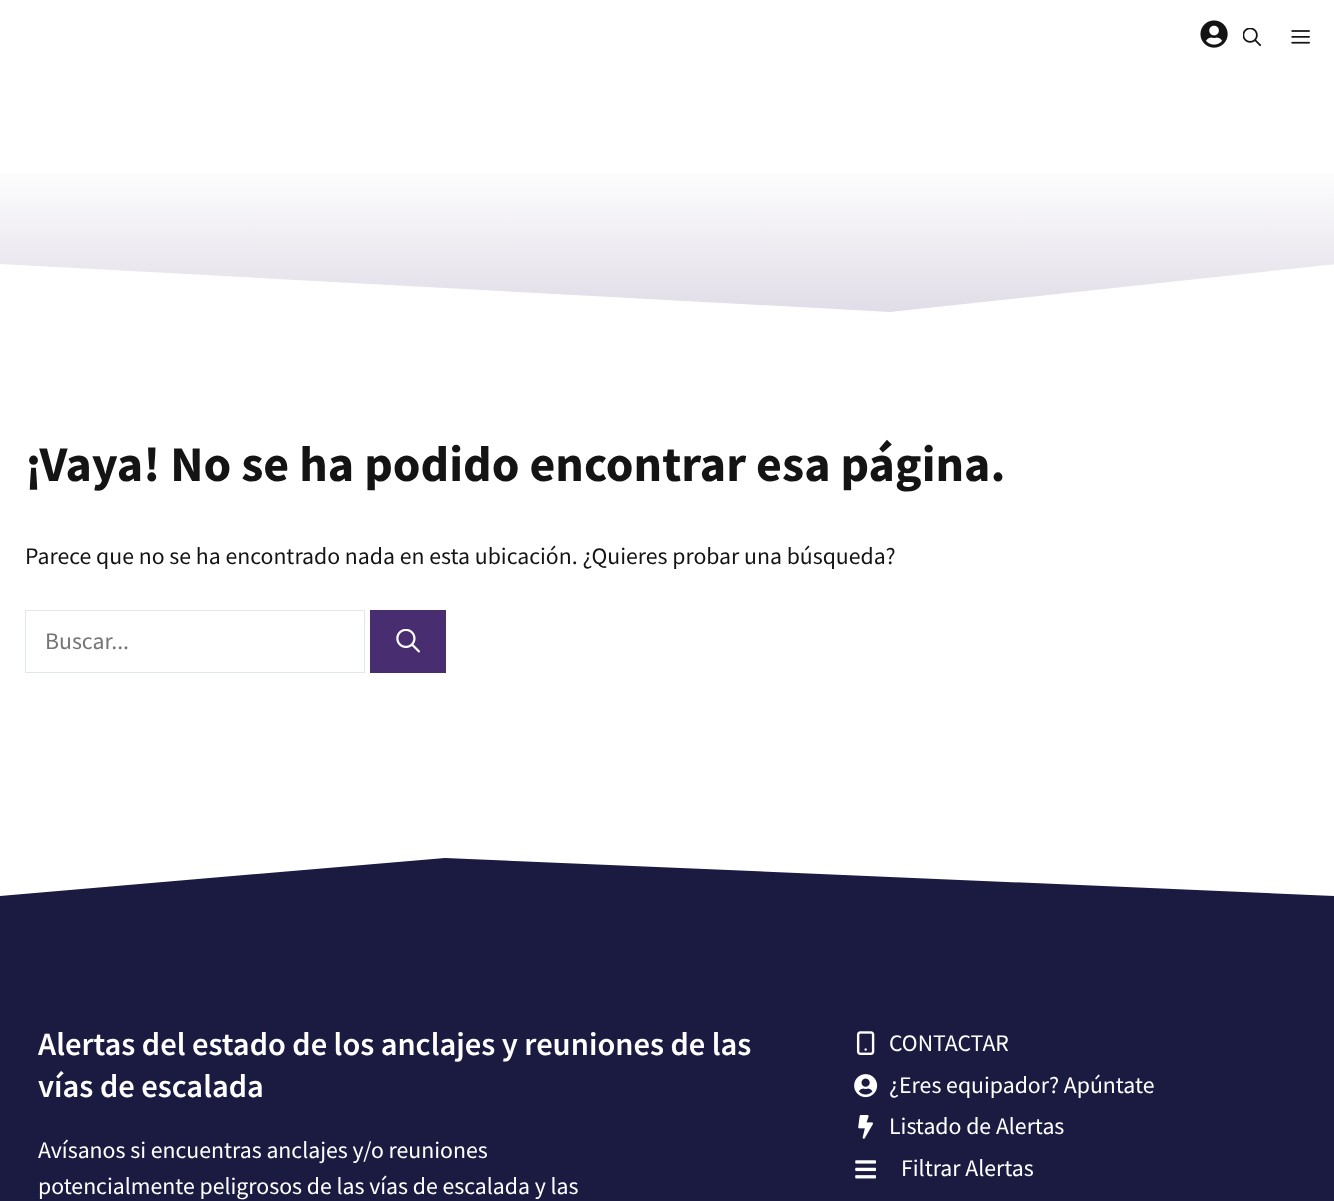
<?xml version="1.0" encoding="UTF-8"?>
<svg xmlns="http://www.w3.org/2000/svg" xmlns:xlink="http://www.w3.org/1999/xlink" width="1334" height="1201">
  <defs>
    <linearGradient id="g1" gradientUnits="userSpaceOnUse" x1="668" y1="0" x2="668" y2="325"><stop offset="0.5" stop-color="#ffffff" /><stop offset="1" stop-color="#dfdae6" /></linearGradient>
    <clipPath id="clip1"><rect y="848" width="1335" height="48" /></clipPath>
  </defs>
  <rect width="100%" height="100%" fill="#ffffff" />
  <image x="1200" y="20" width="28" height="28" xlink:href="image1.png" />
  <image x="1243" y="28" width="18" height="18" xlink:href="image2.png" />
  <image x="1291" y="30" width="19" height="14" xlink:href="image3.png" />
  <rect y="173" width="1334" height="139" fill="url(#g1)" />
  <path d="M -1 326 h 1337 v -62 l -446 48 l -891 -48 z" fill="#ffffff" />
  <rect x="25.5" y="610.5" width="339" height="62" fill="none" stroke="#e1e6ed" />
  <rect x="370" y="610" width="76" height="63" fill="#482d70" />
  <image x="396" y="629" width="24" height="24" xlink:href="image4.png" />
  <rect y="858" width="1334" height="343" fill="#1b1b42" />
  <g clip-path="url(#clip1)">
    <path d="M 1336 846 h -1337 v 50 l 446 -38 l 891 38 z" fill="#ffffff" />
  </g>
  <image x="856" y="1031" width="19" height="24" xlink:href="image5.png" />
  <image x="854" y="1074" width="24" height="24" xlink:href="image6.png" />
  <image x="858" y="1115" width="15" height="24" xlink:href="image7.png" />
  <image x="855" y="1160" width="21" height="19" xlink:href="image8.png" />
  <text x="25" y="481" style="font-family: Source Sans Pro; font-size: 50px; font-weight: bold; fill: #141414">¡Vaya! No se ha podido encontrar esa página.</text>
  <text x="25" y="564" style="font-family: Source Sans Pro; font-size: 23.75px; fill: #141414">Parece que no se ha encontrado nada en esta ubicación. ¿Quieres probar una búsqueda?</text>
  <text x="45" y="649" style="font-family: Source Sans Pro; font-size: 23.75px; fill: #757575">Buscar...</text>
  <text x="38" y="1055" style="font-family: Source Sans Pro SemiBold; font-size: 32.5px; font-weight: 600; fill: #ffffff">Alertas del estado de los anclajes y reuniones de las</text>
  <text x="38" y="1097" style="font-family: Source Sans Pro SemiBold; font-size: 32.5px; font-weight: 600; fill: #ffffff">vías de escalada</text>
  <text x="38" y="1158" style="font-family: Source Sans Pro; font-size: 23.75px; fill: #ffffff">Avísanos si encuentras anclajes y/o reuniones</text>
  <text x="38" y="1194" style="font-family: Source Sans Pro; font-size: 23.75px; fill: #ffffff">potencialmente peligrosos de las vías de escalada y las</text>
  <text x="889" y="1051" style="font-family: Source Sans Pro; font-size: 23.75px; fill: #ffffff">CONTACTAR</text>
  <text x="889" y="1093" style="font-family: Source Sans Pro; font-size: 23.75px; fill: #ffffff">¿Eres equipador? Apúntate</text>
  <text x="889" y="1134" style="font-family: Source Sans Pro; font-size: 23.75px; fill: #ffffff">Listado de Alertas</text>
  <text x="901" y="1176" style="font-family: Source Sans Pro; font-size: 23.75px; fill: #ffffff">Filtrar Alertas</text>
</svg>
